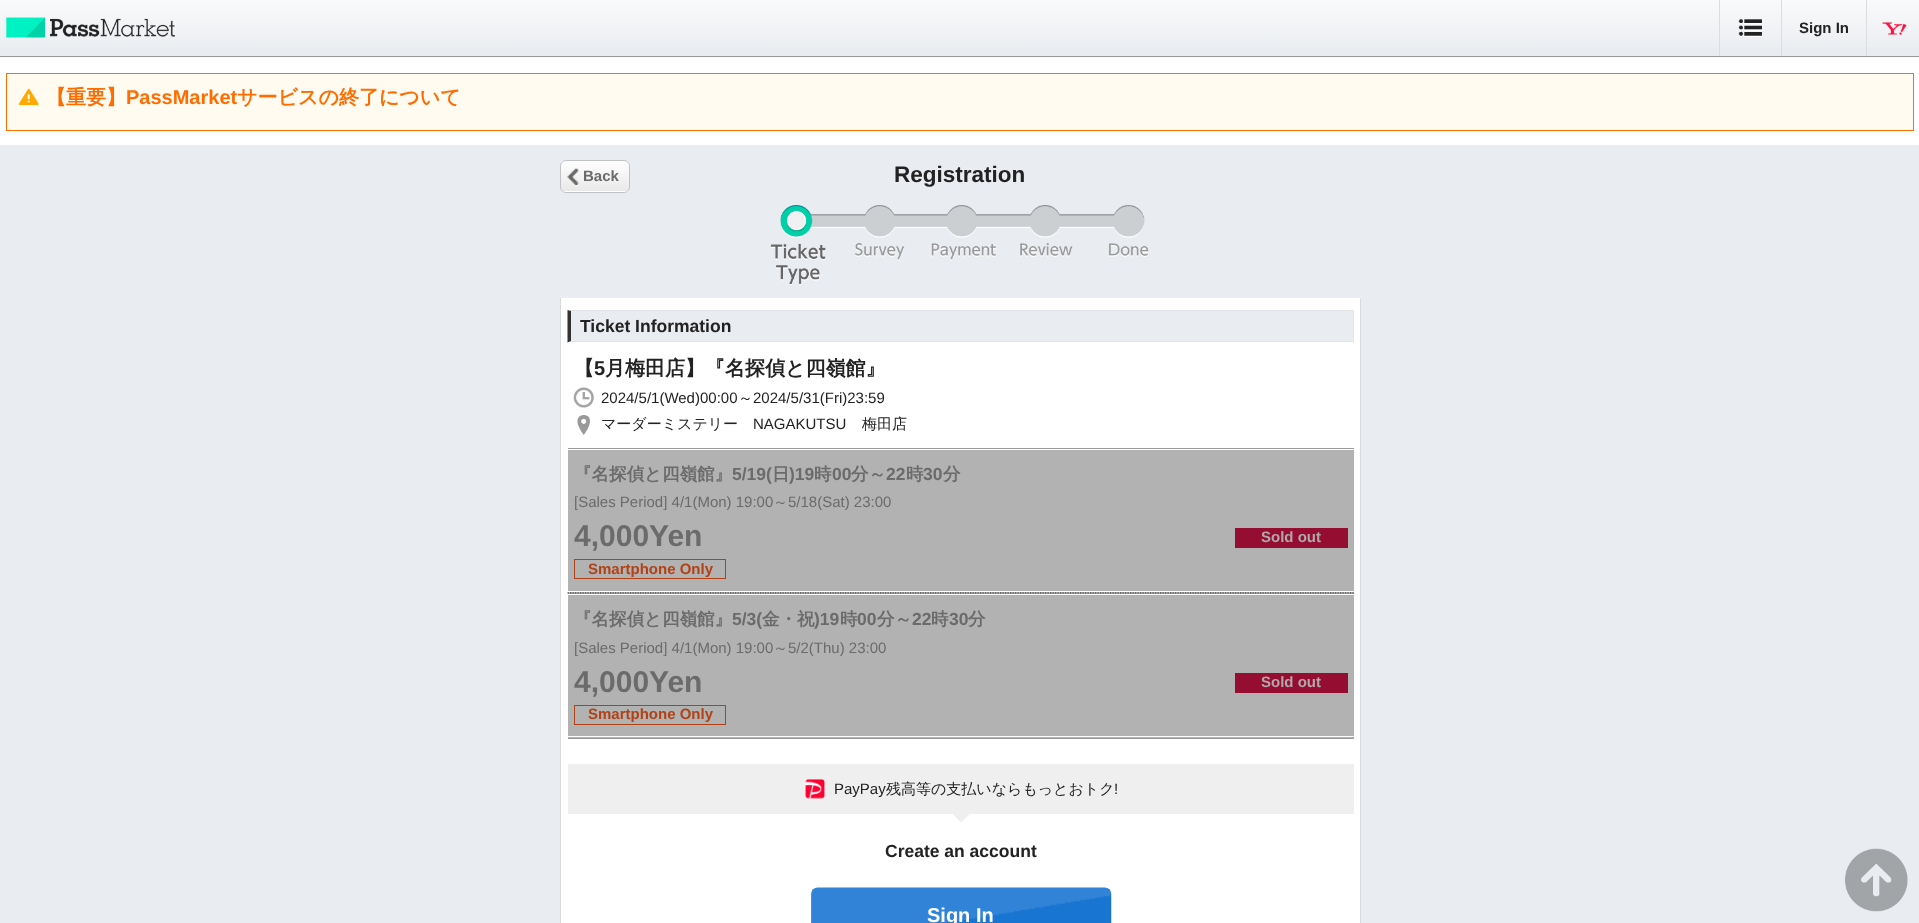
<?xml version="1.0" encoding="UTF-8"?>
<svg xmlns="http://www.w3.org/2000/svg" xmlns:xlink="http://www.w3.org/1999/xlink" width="1919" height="923">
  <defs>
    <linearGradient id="g1" gradientUnits="userSpaceOnUse" x1="0" y1="0" x2="0" y2="56"><stop offset="0" stop-color="#f9fafb" /><stop offset="1" stop-color="#e9ecf0" /></linearGradient>
    <linearGradient id="g2" gradientUnits="userSpaceOnUse" x1="0" y1="56" x2="0" y2="113"><stop offset="0" stop-color="#f9fafb" /><stop offset="1" stop-color="#e9ecf0" /></linearGradient>
    <linearGradient id="g3" gradientUnits="userSpaceOnUse" x1="1719" y1="0" x2="1719" y2="56"><stop offset="0" stop-color="#f9fafb" /><stop offset="1" stop-color="#e9ecf0" /></linearGradient>
    <linearGradient id="g4" gradientUnits="userSpaceOnUse" x1="1719" y1="56" x2="1719" y2="113"><stop offset="0" stop-color="#f9fafb" /><stop offset="1" stop-color="#e9ecf0" /></linearGradient>
    <linearGradient id="g5" gradientUnits="userSpaceOnUse" x1="1781" y1="0" x2="1781" y2="56"><stop offset="0" stop-color="#f9fafb" /><stop offset="1" stop-color="#e9ecf0" /></linearGradient>
    <linearGradient id="g6" gradientUnits="userSpaceOnUse" x1="1781" y1="56" x2="1781" y2="113"><stop offset="0" stop-color="#f9fafb" /><stop offset="1" stop-color="#e9ecf0" /></linearGradient>
    <linearGradient id="g7" gradientUnits="userSpaceOnUse" x1="1866" y1="0" x2="1866" y2="56"><stop offset="0" stop-color="#f9fafb" /><stop offset="1" stop-color="#e9ecf0" /></linearGradient>
    <linearGradient id="g8" gradientUnits="userSpaceOnUse" x1="1866" y1="56" x2="1866" y2="113"><stop offset="0" stop-color="#f9fafb" /><stop offset="1" stop-color="#e9ecf0" /></linearGradient>
    <clipPath id="clip1"><rect x="560" y="160" width="70" height="33" rx="6" /></clipPath>
    <linearGradient id="g9" gradientUnits="userSpaceOnUse" x1="595" y1="161" x2="595" y2="191"><stop offset="0" stop-color="#ffffff" /><stop offset="1" stop-color="#e9e9e9" /></linearGradient>
    <linearGradient id="g10" gradientUnits="userSpaceOnUse" x1="595" y1="191" x2="595" y2="221"><stop offset="0" stop-color="#ffffff" /><stop offset="1" stop-color="#e9e9e9" /></linearGradient>
  </defs>
  <rect width="100%" height="100%" fill="#e9ecf0" />
  <rect y="58" width="1919" height="87" fill="#ffffff" />
  <rect width="1719" height="47" fill="url(#g1)" />
  <rect y="57" width="1719" height="1" fill="url(#g2)" />
  <rect y="56" width="1919" height="1" fill="#999999" />
  <image x="6" y="17" width="169" height="21" xlink:href="image1.png" />
  <rect x="1720" width="61" height="47" fill="url(#g3)" />
  <rect x="1719" y="57" width="62" height="1" fill="url(#g4)" />
  <image x="1738" y="19" width="24" height="18" xlink:href="image2.png" />
  <rect x="1719" width="1" height="56" fill="#dddddd" />
  <rect x="1782" width="84" height="47" fill="url(#g5)" />
  <rect x="1781" y="57" width="85" height="1" fill="url(#g6)" />
  <rect x="1781" width="1" height="56" fill="#dddddd" />
  <rect x="1867" width="52" height="47" fill="url(#g7)" />
  <rect x="1866" y="57" width="53" height="1" fill="url(#g8)" />
  <image x="1882" y="22" width="25" height="13" xlink:href="image3.png" />
  <rect x="1866" width="1" height="56" fill="#dddddd" />
  <rect x="6.5" y="73.5" width="1907" height="57" fill="#fffbf1" stroke="#ff6c00" />
  <image x="18" y="88" width="21" height="17" xlink:href="image4.png" />
  <g clip-path="url(#clip1)">
    <rect x="560" y="161" width="70" height="30" fill="url(#g9)" />
    <rect x="560" y="191" width="70" height="2" fill="url(#g10)" />
  </g>
  <rect x="560.5" y="160.5" width="69" height="32" rx="5.5" fill="none" stroke="#c0c3c6" />
  <image x="567" y="168" width="12" height="17" xlink:href="image5.png" />
  <image x="770" y="205" width="379" height="80" xlink:href="image6.png" />
  <rect x="561" y="299" width="800" height="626" fill="#d8dade" filter="blur(0.5px)" />
  <rect x="561" y="298" width="799" height="625" fill="#ffffff" />
  <path d="M 560 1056 v -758 h 1 v 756 z" fill="#d8dade" />
  <rect x="571" y="311" width="782" height="30" fill="#e9ecf0" />
  <path d="M 568 310 h 786 l -2 1 h -781 z" fill="#e0e3e7" />
  <rect x="1353" y="310" width="1" height="33" fill="#e0e3e7" />
  <path d="M 1354 342 h -786 l 3 -1 h 781 z" fill="#e0e3e7" />
  <path d="M 567.5 342.5 v -32.5 l 3.5 1 v 30 z" fill="#333333" />
  <rect x="568" y="448" width="786" height="1" fill="#999999" />
  <image x="573" y="387" width="21" height="21" xlink:href="image7.png" />
  <image x="577" y="415" width="13" height="20" xlink:href="image8.png" />
  <rect x="568" y="450" width="786" height="144" fill="#b2b2b2" />
  <rect x="568" y="591" width="786" height="1" fill="#ffffff" />
  <path d="M 567.5 593 h 786.5" fill="none" stroke="#222222" stroke-width="1.2" stroke-dasharray="1.25 1.25" />
  <rect x="1235" y="528" width="113" height="20" fill="#950e31" />
  <rect x="574.5" y="559.5" width="151" height="19" fill="none" stroke="#b24216" />
  <rect x="568" y="595" width="786" height="143" fill="#b2b2b2" />
  <rect x="568" y="736" width="786" height="1" fill="#ffffff" />
  <rect x="568" y="738" width="786" height="1" fill="#999999" />
  <rect x="1235" y="673" width="113" height="20" fill="#950e31" />
  <rect x="574.5" y="705.5" width="151" height="19" fill="none" stroke="#b24216" />
  <rect x="568" y="764" width="786" height="50" fill="#efefef" />
  <image x="805" y="779" width="20" height="20" xlink:href="image9.png" />
  <path d="M 952.5 814 h 17.5 l -9 8.5 z" fill="#efefef" />
  <rect x="811" y="889" width="300" height="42" rx="6" fill="#b2b2b2" filter="blur(0.5px)" />
  <image x="811" y="887" width="301" height="36" xlink:href="image10.png" />
  <image x="1845" y="848" width="63" height="64" xlink:href="image11.png" />
  <text x="1799" y="33" style="font-family: Liberation Sans; font-size: 15px; font-weight: bold; fill: #222222">Sign In</text>
  <text x="46" y="104" style="font-family: WenQuanYi Zen Hei; font-size: 20px; font-weight: bold; fill: #ff6c00">【重要】</text>
  <text x="126" y="104" style="font-family: Liberation Sans; font-size: 20px; font-weight: bold; fill: #ff6c00">PassMarket</text>
  <text x="237" y="104" style="font-family: WenQuanYi Zen Hei; font-size: 20px; font-weight: bold; fill: #ff6c00">サービスの終了について</text>
  <text x="583" y="181" style="font-family: Liberation Sans; font-size: 15px; font-weight: bold; fill: #6b6b6b">Back</text>
  <text x="894" y="182" style="font-family: Liberation Sans; font-size: 22.5px; font-weight: bold; fill: #222222">Registration</text>
  <text x="580" y="332" style="font-family: Liberation Sans; font-size: 17.5px; font-weight: bold; fill: #222222">Ticket Information</text>
  <text x="574" y="375" style="font-family: WenQuanYi Zen Hei; font-size: 20px; font-weight: bold; fill: #222222">【</text>
  <text x="594" y="375" style="font-family: Liberation Sans; font-size: 20px; font-weight: bold; fill: #222222">5</text>
  <text x="605" y="375" style="font-family: WenQuanYi Zen Hei; font-size: 20px; font-weight: bold; fill: #222222">月梅田店】『名探偵と四嶺館』</text>
  <text x="601" y="403" style="font-family: Liberation Sans; font-size: 15px; fill: #222222">2024/5/1(Wed)00:00</text>
  <text x="738" y="403" style="font-family: WenQuanYi Zen Hei; font-size: 15px; font-weight: 500; fill: #222222">～</text>
  <text x="753" y="403" style="font-family: Liberation Sans; font-size: 15px; fill: #222222">2024/5/31(Fri)23:59</text>
  <text x="601" y="429" style="font-family: WenQuanYi Zen Hei; font-size: 15px; font-weight: 500; fill: #222222">マーダーミステリー</text>
  <text x="753" y="429" style="font-family: Liberation Sans; font-size: 15px; fill: #222222">NAGAKUTSU</text>
  <text x="862" y="429" style="font-family: WenQuanYi Zen Hei; font-size: 15px; font-weight: 500; fill: #222222">梅田店</text>
  <text x="574" y="480" style="font-family: WenQuanYi Zen Hei; font-size: 17.5px; font-weight: bold; fill: #6b6b6b">『名探偵と四嶺館』</text>
  <text x="732" y="480" style="font-family: Liberation Sans; font-size: 17.5px; font-weight: bold; fill: #6b6b6b">5/19(</text>
  <text x="772" y="480" style="font-family: WenQuanYi Zen Hei; font-size: 17.5px; font-weight: bold; fill: #6b6b6b">日</text>
  <text x="789" y="480" style="font-family: Liberation Sans; font-size: 17.5px; font-weight: bold; fill: #6b6b6b">)19</text>
  <text x="814" y="480" style="font-family: WenQuanYi Zen Hei; font-size: 17.5px; font-weight: bold; fill: #6b6b6b">時</text>
  <text x="832" y="480" style="font-family: Liberation Sans; font-size: 17.5px; font-weight: bold; fill: #6b6b6b">00</text>
  <text x="851" y="480" style="font-family: WenQuanYi Zen Hei; font-size: 17.5px; font-weight: bold; fill: #6b6b6b">分～</text>
  <text x="886" y="480" style="font-family: Liberation Sans; font-size: 17.5px; font-weight: bold; fill: #6b6b6b">22</text>
  <text x="906" y="480" style="font-family: WenQuanYi Zen Hei; font-size: 17.5px; font-weight: bold; fill: #6b6b6b">時</text>
  <text x="923" y="480" style="font-family: Liberation Sans; font-size: 17.5px; font-weight: bold; fill: #6b6b6b">30</text>
  <text x="943" y="480" style="font-family: WenQuanYi Zen Hei; font-size: 17.5px; font-weight: bold; fill: #6b6b6b">分</text>
  <text x="574" y="507" style="font-family: Liberation Sans; font-size: 15px; fill: #6b6b6b">[Sales Period] 4/1(Mon) 19:00</text>
  <text x="773" y="507" style="font-family: WenQuanYi Zen Hei; font-size: 15px; font-weight: 500; fill: #6b6b6b">～</text>
  <text x="788" y="507" style="font-family: Liberation Sans; font-size: 15px; fill: #6b6b6b">5/18(Sat) 23:00</text>
  <text x="574" y="546" style="font-family: Liberation Sans; font-size: 30px; font-weight: bold; fill: #6b6b6b">4,000Yen</text>
  <text x="1261" y="542" style="font-family: Liberation Sans; font-size: 15px; font-weight: bold; fill: #b0a8aa">Sold out</text>
  <text x="588" y="574" style="font-family: Liberation Sans; font-size: 15px; font-weight: bold; fill: #b24216">Smartphone Only</text>
  <text x="574" y="625" style="font-family: WenQuanYi Zen Hei; font-size: 17.5px; font-weight: bold; fill: #6b6b6b">『名探偵と四嶺館』</text>
  <text x="732" y="625" style="font-family: Liberation Sans; font-size: 17.5px; font-weight: bold; fill: #6b6b6b">5/3(</text>
  <text x="762" y="625" style="font-family: WenQuanYi Zen Hei; font-size: 17.5px; font-weight: bold; fill: #6b6b6b">金・祝</text>
  <text x="814" y="625" style="font-family: Liberation Sans; font-size: 17.5px; font-weight: bold; fill: #6b6b6b">)19</text>
  <text x="840" y="625" style="font-family: WenQuanYi Zen Hei; font-size: 17.5px; font-weight: bold; fill: #6b6b6b">時</text>
  <text x="857" y="625" style="font-family: Liberation Sans; font-size: 17.5px; font-weight: bold; fill: #6b6b6b">00</text>
  <text x="877" y="625" style="font-family: WenQuanYi Zen Hei; font-size: 17.5px; font-weight: bold; fill: #6b6b6b">分～</text>
  <text x="912" y="625" style="font-family: Liberation Sans; font-size: 17.5px; font-weight: bold; fill: #6b6b6b">22</text>
  <text x="931" y="625" style="font-family: WenQuanYi Zen Hei; font-size: 17.5px; font-weight: bold; fill: #6b6b6b">時</text>
  <text x="949" y="625" style="font-family: Liberation Sans; font-size: 17.5px; font-weight: bold; fill: #6b6b6b">30</text>
  <text x="968" y="625" style="font-family: WenQuanYi Zen Hei; font-size: 17.5px; font-weight: bold; fill: #6b6b6b">分</text>
  <text x="574" y="653" style="font-family: Liberation Sans; font-size: 15px; fill: #6b6b6b">[Sales Period] 4/1(Mon) 19:00</text>
  <text x="773" y="653" style="font-family: WenQuanYi Zen Hei; font-size: 15px; font-weight: 500; fill: #6b6b6b">～</text>
  <text x="788" y="653" style="font-family: Liberation Sans; font-size: 15px; fill: #6b6b6b">5/2(Thu) 23:00</text>
  <text x="574" y="692" style="font-family: Liberation Sans; font-size: 30px; font-weight: bold; fill: #6b6b6b">4,000Yen</text>
  <text x="1261" y="687" style="font-family: Liberation Sans; font-size: 15px; font-weight: bold; fill: #b0a8aa">Sold out</text>
  <text x="588" y="719" style="font-family: Liberation Sans; font-size: 15px; font-weight: bold; fill: #b24216">Smartphone Only</text>
  <text x="834" y="794" style="font-family: Liberation Sans; font-size: 15px; fill: #222222">PayPay</text>
  <text x="886" y="794" style="font-family: WenQuanYi Zen Hei; font-size: 15px; font-weight: 500; fill: #222222">残高等の支払いならもっとおトク</text>
  <text x="1114" y="794" style="font-family: Liberation Sans; font-size: 15px; fill: #222222">!</text>
  <text x="885" y="857" style="font-family: Liberation Sans; font-size: 17.5px; font-weight: bold; fill: #222222">Create an account</text>
  <text x="927" y="922" style="font-family: Liberation Sans; font-size: 20px; font-weight: bold; fill: #ffffff">Sign In</text>
</svg>
